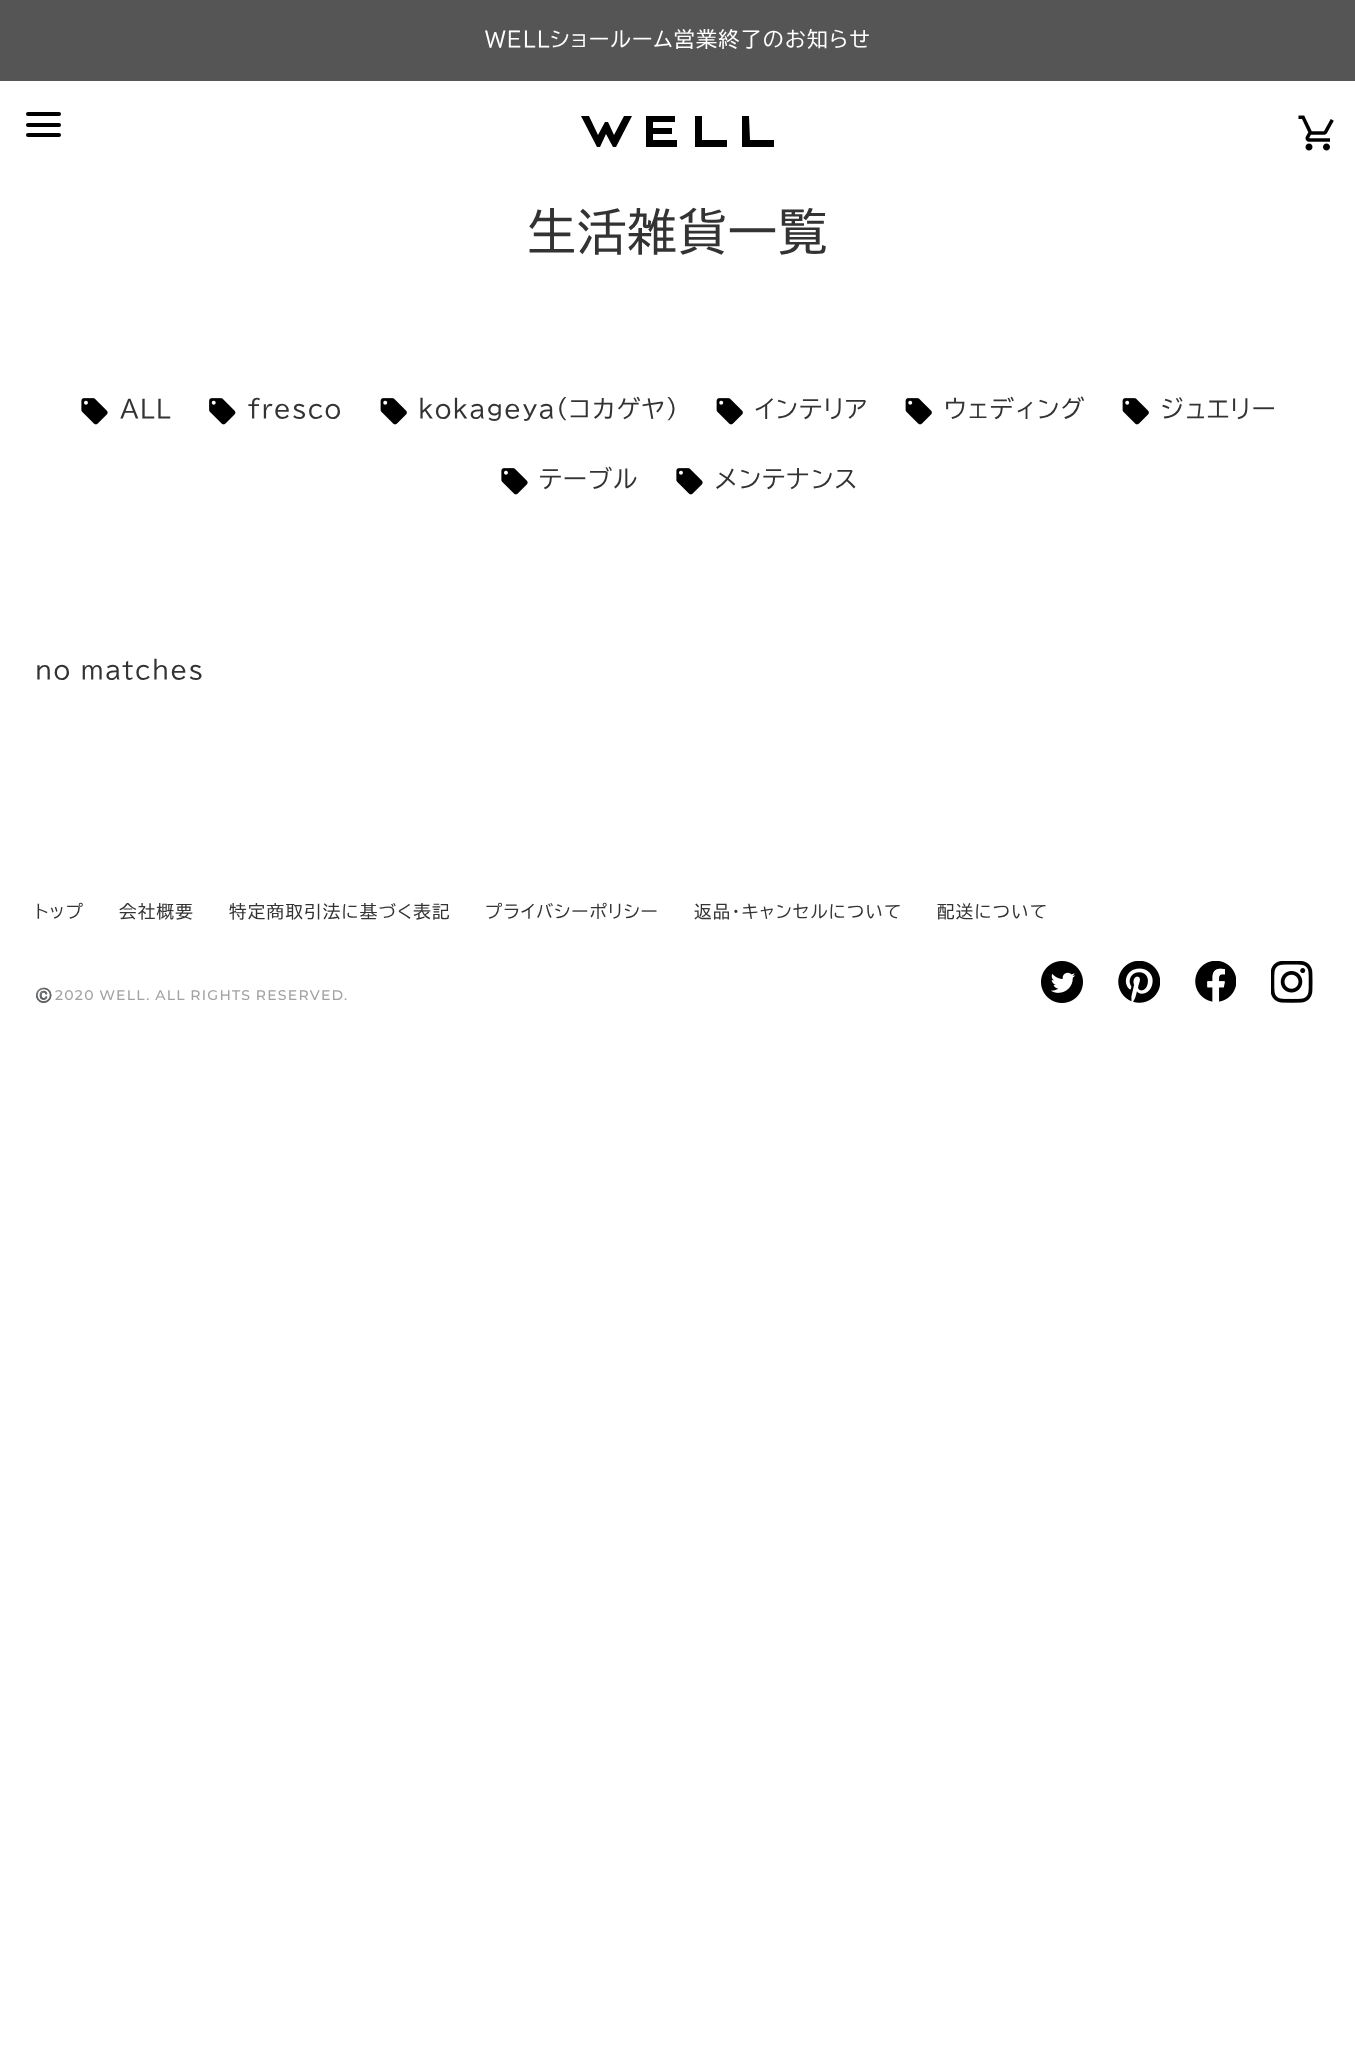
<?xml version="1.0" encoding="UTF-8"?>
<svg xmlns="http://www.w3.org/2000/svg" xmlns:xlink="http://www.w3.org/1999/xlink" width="1355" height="2069">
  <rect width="100%" height="100%" fill="#ffffff" />
  <rect width="1355" height="81" fill="#555555" />
  <rect x="26" y="112" width="35" height="4" rx="2" fill="#000000" />
  <rect x="26" y="123" width="35" height="4" rx="2" fill="#000000" />
  <rect x="26" y="133" width="35" height="4" rx="2" fill="#000000" />
  <path d="M 653 134 h 19 v -6 h -19 v -6 h 22 v -6 h -29 v 31 h 31 v -7 h -24 z m 49 -18 h -7 v 31 h 32 v -7 h -25 z m 47 0 h -7 v 31 h 32 v -7 h -24 z m -143 18 l -6 13 h -3 l -16 -31 h 8 l 9 19 l 7 -13 h 3 l 6 13 l 10 -19 h 8 l -16 31 h -3 l -7 -13" fill="#000000" />
  <image x="1298" y="115" width="36" height="36" xlink:href="image1.png" />
  <image x="81" y="398" width="27" height="27" xlink:href="image2.png" />
  <image x="209" y="398" width="27" height="27" xlink:href="image3.png" />
  <image x="380" y="398" width="27" height="27" xlink:href="image4.png" />
  <image x="716" y="398" width="27" height="27" xlink:href="image4.png" />
  <image x="905" y="398" width="27" height="27" xlink:href="image4.png" />
  <image x="1122" y="398" width="27" height="27" xlink:href="image4.png" />
  <image x="501" y="468" width="27" height="27" xlink:href="image2.png" />
  <image x="676" y="468" width="27" height="27" xlink:href="image2.png" />
  <image x="1041" y="961" width="42" height="42" xlink:href="image5.png" />
  <image x="1118" y="961" width="42" height="42" xlink:href="image6.png" />
  <image x="1195" y="961" width="41" height="41" xlink:href="image7.png" />
  <image x="1271" y="961" width="42" height="42" xlink:href="image8.png" />
  <text x="485" y="47" style="font-family: BIZ UDPGothic; font-size: 21px; letter-spacing: 1.25px; fill: #ffffff">WELLショールーム営業終了のお知らせ</text>
  <text x="527" y="250" style="font-family: BIZ UDPGothic; font-size: 49px; letter-spacing: 1.25px; fill: #333333">生活雑貨一覧</text>
  <text x="120" y="418" style="font-family: BIZ UDPGothic; font-size: 24.5px; letter-spacing: 1.25px; fill: #333333">ALL</text>
  <text x="248" y="418" style="font-family: BIZ UDPGothic; font-size: 24.5px; letter-spacing: 1.25px; fill: #333333">fresco</text>
  <text x="418" y="418" style="font-family: BIZ UDPGothic; font-size: 24.5px; letter-spacing: 1.25px; fill: #333333">kokageya（コカゲヤ）</text>
  <text x="755" y="418" style="font-family: BIZ UDPGothic; font-size: 24.5px; letter-spacing: 1.25px; fill: #333333">インテリア</text>
  <text x="944" y="418" style="font-family: BIZ UDPGothic; font-size: 24.5px; letter-spacing: 1.25px; fill: #333333">ウェディング</text>
  <text x="1161" y="418" style="font-family: BIZ UDPGothic; font-size: 24.5px; letter-spacing: 1.25px; fill: #333333">ジュエリー</text>
  <text x="539" y="488" style="font-family: BIZ UDPGothic; font-size: 24.5px; letter-spacing: 1.25px; fill: #333333">テーブル</text>
  <text x="715" y="488" style="font-family: BIZ UDPGothic; font-size: 24.5px; letter-spacing: 1.25px; fill: #333333">メンテナンス</text>
  <text x="35" y="679" style="font-family: BIZ UDPGothic; font-size: 24.5px; letter-spacing: 1.25px; fill: #333333">no matches</text>
  <text x="35" y="918" style="font-family: BIZ UDPGothic; font-size: 17.5px; letter-spacing: 1.25px; fill: #333333">トップ</text>
  <text x="119" y="918" style="font-family: BIZ UDPGothic; font-size: 17.5px; letter-spacing: 1.25px; fill: #333333">会社概要</text>
  <text x="229" y="918" style="font-family: BIZ UDPGothic; font-size: 17.5px; letter-spacing: 1.25px; fill: #333333">特定商取引法に基づく表記</text>
  <text x="485" y="918" style="font-family: BIZ UDPGothic; font-size: 17.5px; letter-spacing: 1.25px; fill: #333333">プライバシーポリシー</text>
  <text x="694" y="918" style="font-family: BIZ UDPGothic; font-size: 17.5px; letter-spacing: 1.25px; fill: #333333">返品・キャンセルについて</text>
  <text x="937" y="918" style="font-family: BIZ UDPGothic; font-size: 17.5px; letter-spacing: 1.25px; fill: #333333">配送について</text>
  <text x="35" y="1000" style="font-family: Noto Color Emoji; font-size: 14px; letter-spacing: 1.25px; fill: #a2a2a2">©️</text>
  <text x="55" y="1000" word-spacing="-0.5" style="font-family: Montserrat; font-size: 14px; font-weight: 500; letter-spacing: 1.25px; fill: #a2a2a2">2020 WELL. ALL RIGHTS RESERVED.</text>
</svg>
